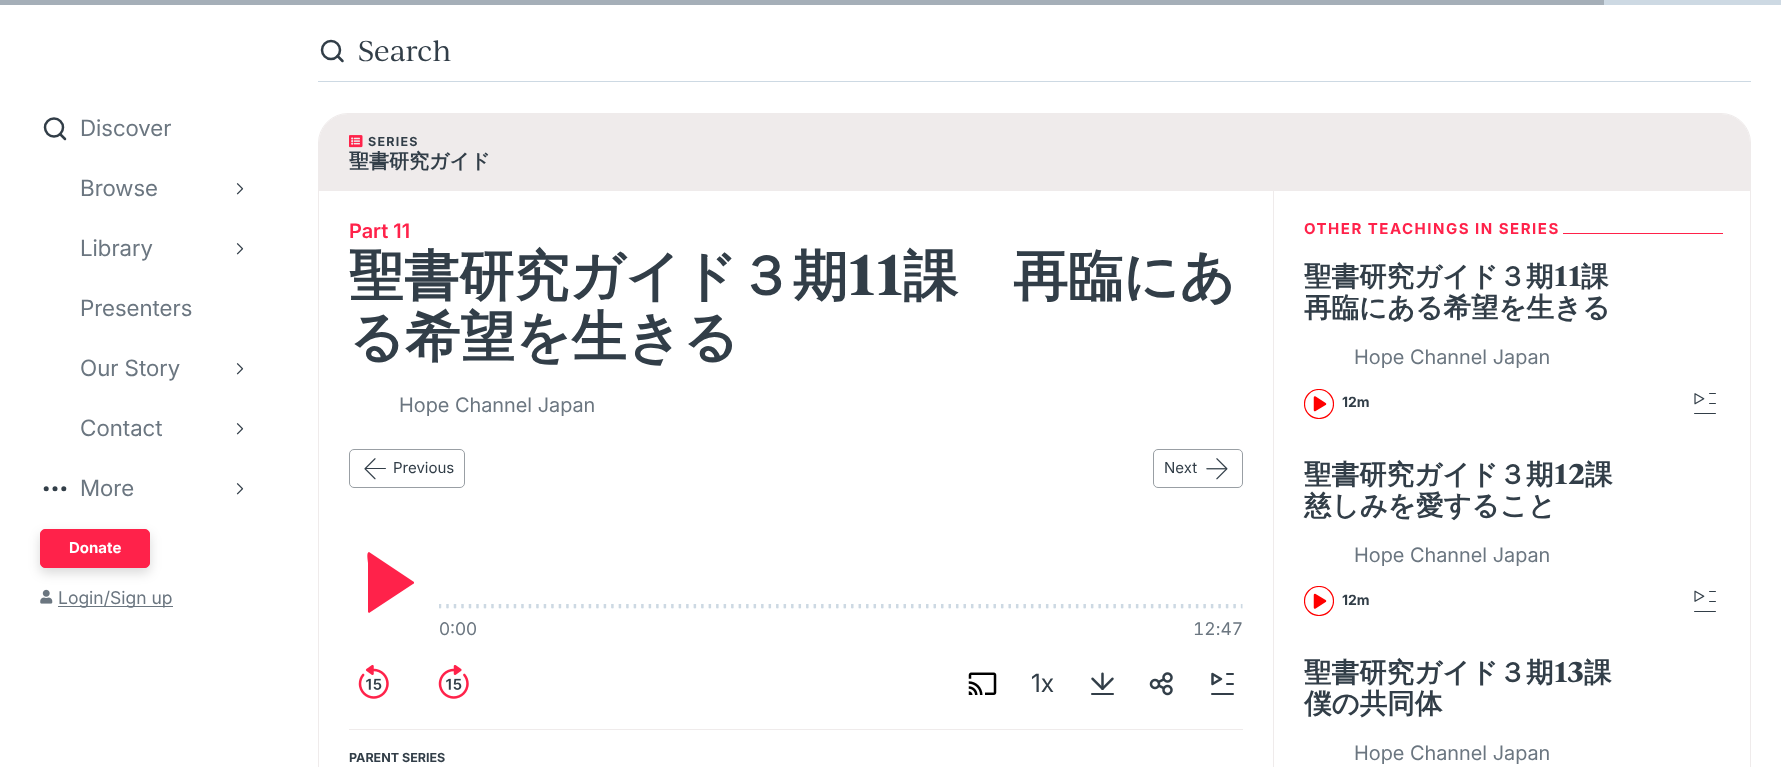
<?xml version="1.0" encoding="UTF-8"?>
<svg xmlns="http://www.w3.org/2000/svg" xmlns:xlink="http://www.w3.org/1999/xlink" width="1781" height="767">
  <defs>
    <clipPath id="clip1"><rect x="1304" y="389" width="30" height="30" /></clipPath>
    <clipPath id="clip2"><rect x="1304" y="586" width="30" height="30" /></clipPath>
  </defs>
  <rect width="100%" height="100%" fill="#ffffff" />
  <rect x="1604" width="177" height="5" fill="#cdd9e3" />
  <rect width="1604" height="5" fill="#a5afb8" />
  <circle cx="54" cy="127.5" r="9" fill="none" stroke="#323e48" stroke-width="2.5" />
  <path d="M 60 134 l 5 5" fill="none" stroke="#323e48" stroke-width="2.5" stroke-linecap="round" />
  <image x="236" y="183" width="8" height="12" xlink:href="image1.png" />
  <image x="236" y="243" width="8" height="12" xlink:href="image1.png" />
  <image x="236" y="363" width="8" height="12" xlink:href="image1.png" />
  <image x="236" y="423" width="8" height="12" xlink:href="image1.png" />
  <circle cx="46.2" cy="488.8" r="2.5" fill="#323e48" />
  <circle cx="55" cy="488.8" r="2.5" fill="#323e48" />
  <circle cx="63.8" cy="488.8" r="2.5" fill="#323e48" />
  <image x="236" y="483" width="8" height="12" xlink:href="image1.png" />
  <rect x="40" y="534" width="110" height="39" rx="5" fill="#000000" fill-opacity="0.15" filter="blur(6px)" />
  <rect x="40.5" y="529.5" width="109" height="38" rx="4.5" fill="#ff224a" stroke="#ff224a" />
  <image x="40" y="589" width="13" height="15" xlink:href="image2.png" />
  <rect x="58" y="606" width="115" height="1" fill="#6b7680" />
  <rect x="318" y="81" width="1433" height="1" fill="#cdd9e3" />
  <circle cx="331" cy="50" r="9" fill="none" stroke="#323e48" stroke-width="2.5" />
  <path d="M 337.5 56 l 5 5" fill="none" stroke="#323e48" stroke-width="2.5" stroke-linecap="round" />
  <rect x="318.5" y="113.5" width="1432" height="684" rx="29.5" fill="none" stroke="#efebeb" />
  <path d="M 348 114 h 1373 c 16 0 29 13 29 29 v 48 h -1431 v -48 c 0 -16 13 -29 29 -29 z" fill="#efebeb" />
  <image x="349" y="135" width="14" height="13" xlink:href="image3.png" />
  <rect x="349.5" y="449.5" width="115" height="38" rx="4.5" fill="none" stroke="#999fa4" />
  <image x="364" y="458" width="22" height="22" xlink:href="image4.png" />
  <rect x="1153.5" y="449.5" width="89" height="38" rx="4.5" fill="none" stroke="#999fa4" />
  <image x="1206" y="458" width="22" height="22" xlink:href="image5.png" />
  <path d="M 368 612 v -49 c 0 -2 -2 -11 1 -11 l 45 30 c 0 1 0 2 -1 2 l -44 29 l -1 -1" fill="#ff224a" />
  <image x="439" y="604" width="804" height="5" xlink:href="image6.png" />
  <image x="358" y="664" width="31" height="35" xlink:href="image7.png" />
  <image x="438" y="665" width="31" height="34" xlink:href="image8.png" />
  <image x="968" y="672" width="29" height="23" xlink:href="image9.png" />
  <image x="1091" y="672" width="23" height="23" xlink:href="image10.png" />
  <image x="1149" y="672" width="24" height="24" xlink:href="image11.png" />
  <rect x="1226" y="673" width="8" height="2" rx="1" fill="#323e48" />
  <path d="M 1221 679 l -8.5 -5 v 10 z" fill="none" stroke="#323e48" stroke-width="2.5" stroke-linejoin="round" />
  <rect x="1226" y="683" width="8" height="2" rx="1" fill="#323e48" />
  <rect x="1211" y="693" width="23" height="2" rx="1" fill="#323e48" />
  <rect x="349" y="729" width="894" height="1" fill="#efebeb" />
  <rect x="1273" y="191" width="1" height="576" fill="#efebeb" />
  <rect x="1563" y="233" width="160" height="1" fill="#ff224a" />
  <path d="M 1315 410 v -12.5 l 10 6.5 z" fill="#ff0000" stroke="#ff0000" stroke-width="2.5" stroke-linejoin="round" />
  <g clip-path="url(#clip1)">
    <circle cx="1319" cy="404" r="14.5" fill="none" stroke="#ff0000" stroke-width="1.2" />
  </g>
  <image x="1694" y="393" width="22" height="21" xlink:href="image12.png" />
  <path d="M 1315 607.5 v -12.5 l 10 6 z" fill="#ff0000" stroke="#ff0000" stroke-width="2.5" stroke-linejoin="round" />
  <g clip-path="url(#clip2)">
    <circle cx="1319" cy="601" r="14.5" fill="none" stroke="#ff0000" stroke-width="1.2" />
  </g>
  <image x="1694" y="590" width="22" height="22" xlink:href="image13.png" />
  <text x="80" y="136" style="font-family: 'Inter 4'; font-size: 22.5px; fill: #6b7680">Discover</text>
  <text x="80" y="196" style="font-family: 'Inter 4'; font-size: 22.5px; fill: #6b7680">Browse</text>
  <text x="80" y="256" style="font-family: 'Inter 4'; font-size: 22.5px; fill: #6b7680">Library</text>
  <text x="80" y="316" style="font-family: 'Inter 4'; font-size: 22.5px; fill: #6b7680">Presenters</text>
  <text x="80" y="376" style="font-family: 'Inter 4'; font-size: 22.5px; fill: #6b7680">Our Story</text>
  <text x="80" y="436" style="font-family: 'Inter 4'; font-size: 22.5px; fill: #6b7680">Contact</text>
  <text x="80" y="496" style="font-family: 'Inter 4'; font-size: 22.5px; fill: #6b7680">More</text>
  <text x="69" y="553" style="font-family: Inter; font-size: 15px; font-weight: bold; fill: #ffffff">Donate</text>
  <text x="58" y="604" style="font-family: 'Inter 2'; font-size: 17.5px; fill: #6b7680">Login/Sign up</text>
  <text x="358" y="61" style="font-family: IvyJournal; font-size: 27.5px; fill: #323e48">Search</text>
  <text x="368" y="146" style="font-family: Inter; font-size: 12.5px; font-weight: bold; letter-spacing: 1.25px; fill: #323e48">SERIES</text>
  <text x="349" y="168" style="font-family: WenQuanYi Zen Hei; font-size: 20px; font-weight: bold; fill: #323e48">聖書研究ガイド</text>
  <text x="349" y="238" style="font-family: Inter; font-size: 20px; font-weight: 600; fill: #ff224a">Part 11</text>
  <text x="349" y="295" style="font-family: WenQuanYi Zen Hei; font-size: 55px; font-weight: bold; fill: #323e48">聖書研究ガイド３期</text>
  <text x="848" y="295" style="font-family: IvyJournal; font-size: 55px; font-weight: bold; fill: #323e48">11</text>
  <text x="903" y="295" style="font-family: WenQuanYi Zen Hei; font-size: 55px; font-weight: bold; fill: #323e48">課　再臨にあ</text>
  <text x="349" y="356" style="font-family: WenQuanYi Zen Hei; font-size: 55px; font-weight: bold; fill: #323e48">る希望を生きる</text>
  <text x="399" y="412" style="font-family: Inter; font-size: 20px; fill: #6b7680">Hope Channel Japan</text>
  <text x="393" y="473" style="font-family: 'Inter 2'; font-size: 15px; fill: #323e48">Previous</text>
  <text x="1164" y="473" style="font-family: 'Inter 2'; font-size: 15px; fill: #323e48">Next</text>
  <text x="439" y="635" style="font-family: 'Inter 2'; font-size: 17.5px; fill: #6b7680">0:00</text>
  <text x="1193" y="635" style="font-family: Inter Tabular; font-size: 17.5px; fill: #6b7680">12:47</text>
  <text x="1031" y="692" style="font-family: 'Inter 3'; font-size: 25px; fill: #323e48">1x</text>
  <text x="349" y="762" style="font-family: Inter; font-size: 12.5px; font-weight: bold; fill: #323e48">PARENT SERIES</text>
  <text x="1304" y="234" style="font-family: Inter; font-size: 15px; font-weight: bold; letter-spacing: 1.5px; fill: #ff224a">OTHER TEACHINGS IN SERIES</text>
  <text x="1304" y="286" style="font-family: WenQuanYi Zen Hei; font-size: 27.5px; font-weight: bold; fill: #323e48">聖書研究ガイド３期</text>
  <text x="1554" y="286" style="font-family: IvyJournal; font-size: 27.5px; font-weight: bold; fill: #323e48">11</text>
  <text x="1581" y="286" style="font-family: WenQuanYi Zen Hei; font-size: 27.5px; font-weight: bold; fill: #323e48">課</text>
  <text x="1304" y="317" style="font-family: WenQuanYi Zen Hei; font-size: 27.5px; font-weight: bold; fill: #323e48">再臨にある希望を生きる</text>
  <text x="1354" y="364" style="font-family: Inter; font-size: 20px; fill: #6b7680">Hope Channel Japan</text>
  <text x="1342" y="407" style="font-family: Inter; font-size: 14px; font-weight: bold; fill: #323e48">12m</text>
  <text x="1304" y="484" style="font-family: WenQuanYi Zen Hei; font-size: 27.5px; font-weight: bold; fill: #323e48">聖書研究ガイド３期</text>
  <text x="1554" y="484" style="font-family: IvyJournal; font-size: 27.5px; font-weight: bold; fill: #323e48">12</text>
  <text x="1585" y="484" style="font-family: WenQuanYi Zen Hei; font-size: 27.5px; font-weight: bold; fill: #323e48">課</text>
  <text x="1304" y="515" style="font-family: WenQuanYi Zen Hei; font-size: 27.5px; font-weight: bold; fill: #323e48">慈しみを愛すること</text>
  <text x="1354" y="562" style="font-family: Inter; font-size: 20px; fill: #6b7680">Hope Channel Japan</text>
  <text x="1342" y="605" style="font-family: Inter; font-size: 14px; font-weight: bold; fill: #323e48">12m</text>
  <text x="1304" y="682" style="font-family: WenQuanYi Zen Hei; font-size: 27.5px; font-weight: bold; fill: #323e48">聖書研究ガイド３期</text>
  <text x="1554" y="682" style="font-family: IvyJournal; font-size: 27.5px; font-weight: bold; fill: #323e48">13</text>
  <text x="1584" y="682" style="font-family: WenQuanYi Zen Hei; font-size: 27.5px; font-weight: bold; fill: #323e48">課</text>
  <text x="1304" y="713" style="font-family: WenQuanYi Zen Hei; font-size: 27.5px; font-weight: bold; fill: #323e48">僕の共同体</text>
  <text x="1354" y="760" style="font-family: Inter; font-size: 20px; fill: #6b7680">Hope Channel Japan</text>
</svg>
